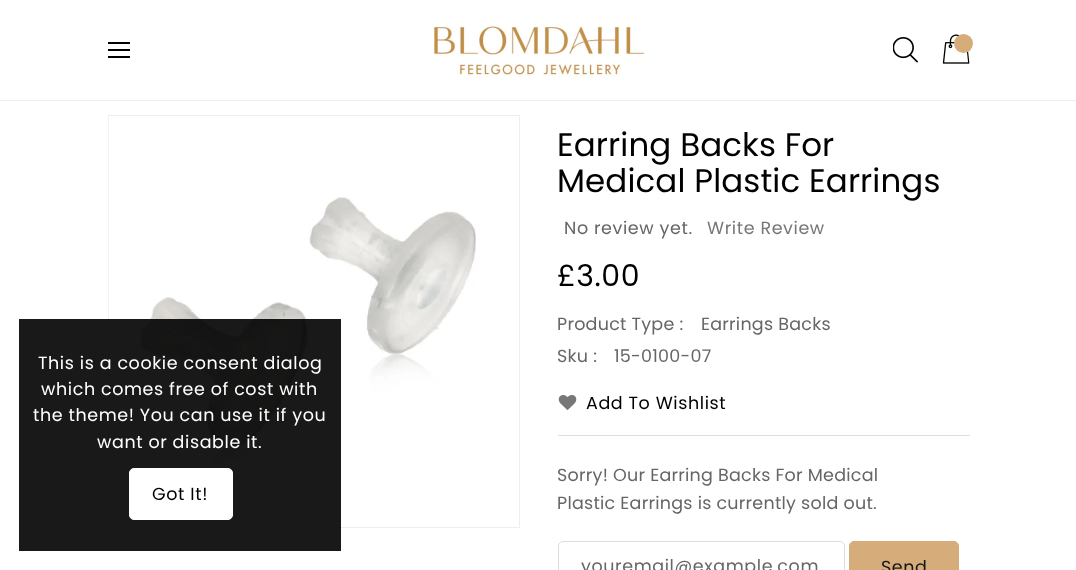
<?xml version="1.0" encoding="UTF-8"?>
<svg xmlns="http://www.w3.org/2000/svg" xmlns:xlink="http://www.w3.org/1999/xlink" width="1076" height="570">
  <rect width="100%" height="100%" fill="#ffffff" />
  <rect y="100" width="1076" height="1" fill="#eeeeee" />
  <rect x="108" y="42" width="22" height="2" fill="#000000" />
  <rect x="108" y="49" width="22" height="2" fill="#000000" />
  <rect x="108" y="56" width="22" height="2" fill="#000000" />
  <image x="433" y="26" width="212" height="51" xlink:href="image1.png" />
  <image x="893" y="37" width="25" height="26" xlink:href="image2.png" />
  <image x="942" y="34" width="28" height="30" xlink:href="image3.png" />
  <circle cx="963.5" cy="43.5" r="9.5" fill="#d5ac7a" />
  <rect x="108.5" y="115.5" width="411" height="412" fill="none" stroke="#eeeeee" />
  <image x="108" y="117" width="368" height="409" xlink:href="image4.png" />
  <rect x="19" y="319" width="322" height="232" fill="#000000" fill-opacity="0.9" />
  <rect x="129.5" y="468.5" width="103" height="51" rx="4.5" fill="#ffffff" stroke="#ffffff" />
  <image x="558" y="395" width="19" height="15" xlink:href="image5.png" />
  <rect x="558" y="435" width="412" height="1" fill="#dddddd" />
  <rect x="558.5" y="541.5" width="286" height="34" rx="4.5" fill="none" stroke="#dddddd" />
  <rect x="849.5" y="541.5" width="109" height="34" rx="4.5" fill="#d5ac7a" stroke="#d5ac7a" />
  <text x="38" y="369" style="font-family: Poppins; font-size: 17.5px; letter-spacing: 0.6px; fill: #ffffff">This is a cookie consent dialog</text>
  <text x="41" y="395" style="font-family: Poppins; font-size: 17.5px; letter-spacing: 0.6px; fill: #ffffff">which comes free of cost with</text>
  <text x="33" y="421" style="font-family: Poppins; font-size: 17.5px; letter-spacing: 0.6px; fill: #ffffff">the theme! You can use it if you</text>
  <text x="97" y="448" style="font-family: Poppins; font-size: 17.5px; letter-spacing: 0.6px; fill: #ffffff">want or disable it.</text>
  <text x="152" y="500" style="font-family: Poppins; font-size: 17.5px; letter-spacing: 0.6px; fill: #000000">Got It!</text>
  <text x="557" y="156" style="font-family: Poppins; font-size: 32.5px; letter-spacing: 0.1px; fill: #000000">Earring Backs For</text>
  <text x="557" y="192" style="font-family: Poppins; font-size: 32.5px; letter-spacing: 0.1px; fill: #000000">Medical Plastic Earrings</text>
  <text x="564" y="234" style="font-family: Poppins; font-size: 17.5px; letter-spacing: 0.6px; fill: #666666">No review yet.</text>
  <text x="707" y="234" style="font-family: Poppins; font-size: 17.5px; letter-spacing: 0.6px; fill: #777777">Write Review</text>
  <text x="557" y="286" style="font-family: Poppins; font-size: 30px; letter-spacing: 0.6px; fill: #000000">£3.00</text>
  <text x="557" y="330" style="font-family: Poppins; font-size: 17.5px; letter-spacing: 0.25px; fill: #666666">Product Type :</text>
  <text x="701" y="330" style="font-family: Poppins; font-size: 17.5px; letter-spacing: 0.25px; fill: #666666">Earrings Backs</text>
  <text x="557" y="362" style="font-family: Poppins; font-size: 17.5px; letter-spacing: 0.25px; fill: #666666">Sku :</text>
  <text x="614" y="362" style="font-family: Poppins; font-size: 17.5px; letter-spacing: 0.25px; fill: #666666">15-0100-07</text>
  <text x="586" y="409" style="font-family: Poppins; font-size: 17.5px; letter-spacing: 0.6px; fill: #000000">Add To Wishlist</text>
  <text x="557" y="481" style="font-family: Poppins; font-size: 17.5px; letter-spacing: 0.25px; fill: #666666">Sorry! Our Earring Backs For Medical</text>
  <text x="557" y="509" style="font-family: Poppins; font-size: 17.5px; letter-spacing: 0.25px; fill: #666666">Plastic Earrings is currently sold out.</text>
  <text x="581" y="572" style="font-family: Poppins; font-size: 17.5px; letter-spacing: 0.6px; fill: #666666">youremail@example.com</text>
  <text x="881" y="573" style="font-family: Poppins; font-size: 17.5px; letter-spacing: 0.6px; fill: #161616">Send</text>
</svg>
